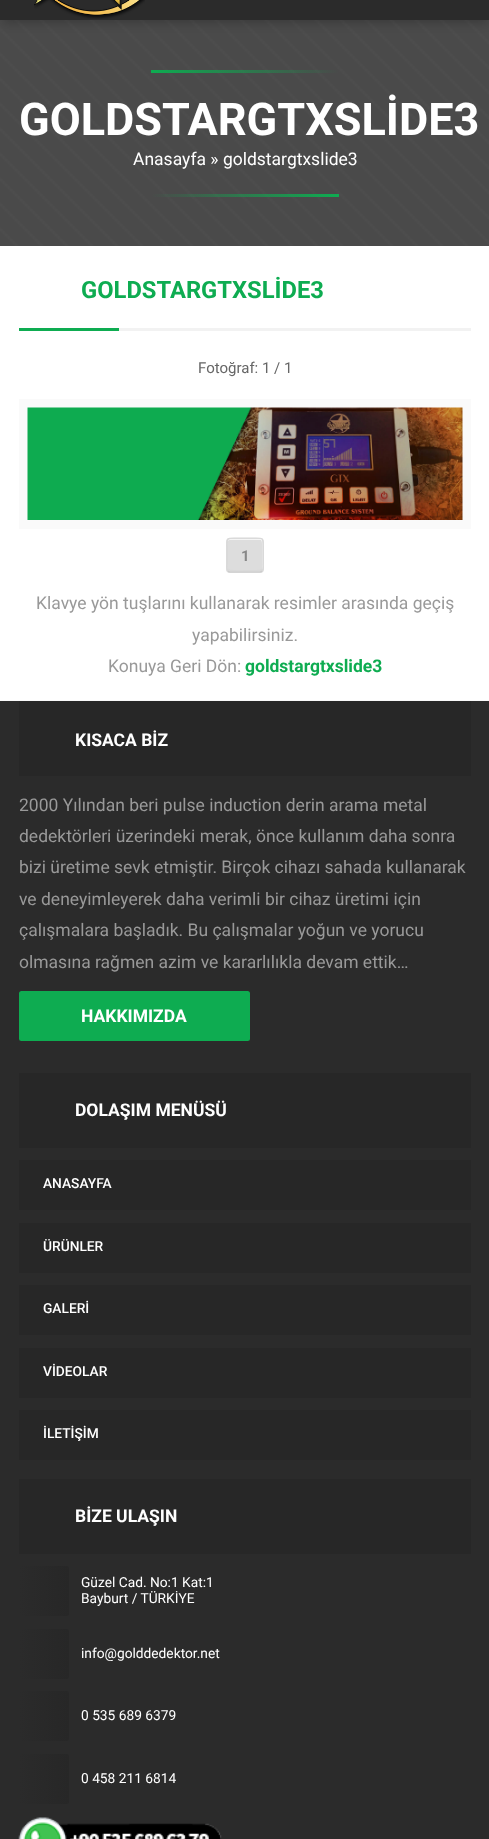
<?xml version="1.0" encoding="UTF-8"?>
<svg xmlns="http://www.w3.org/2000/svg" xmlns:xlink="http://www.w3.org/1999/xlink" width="489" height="1839">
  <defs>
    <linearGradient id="g1" gradientUnits="userSpaceOnUse" x1="151" y1="71" x2="339" y2="71"><stop offset="0" stop-color="#0eac51" /><stop offset="1" stop-color="#0eac51" stop-opacity="0" /></linearGradient>
    <linearGradient id="g2" gradientUnits="userSpaceOnUse" x1="151" y1="195" x2="339" y2="195"><stop offset="0" stop-color="#0eac51" stop-opacity="0" /><stop offset="1" stop-color="#0eac51" /></linearGradient>
    <linearGradient id="g3" gradientUnits="userSpaceOnUse" x1="19" y1="1591" x2="69" y2="1591"><stop offset="0" stop-color="#2b2b2b" /><stop offset="1" stop-color="#272727" /></linearGradient>
    <linearGradient id="g4" gradientUnits="userSpaceOnUse" x1="19" y1="1654" x2="69" y2="1654"><stop offset="0" stop-color="#2b2b2b" /><stop offset="1" stop-color="#272727" /></linearGradient>
    <linearGradient id="g5" gradientUnits="userSpaceOnUse" x1="19" y1="1716" x2="69" y2="1716"><stop offset="0" stop-color="#2b2b2b" /><stop offset="1" stop-color="#272727" /></linearGradient>
    <linearGradient id="g6" gradientUnits="userSpaceOnUse" x1="19" y1="1779" x2="69" y2="1779"><stop offset="0" stop-color="#2b2b2b" /><stop offset="1" stop-color="#272727" /></linearGradient>
  </defs>
  <rect width="100%" height="100%" fill="#f9f9f9" />
  <image x="0" y="20" width="489" height="226" xlink:href="image2.png" />
  <rect x="3" y="-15" width="485" height="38" fill="#000000" fill-opacity="0.2" filter="blur(5px)" />
  <rect width="489" height="20" fill="#2b2b2b" />
  <image x="34" y="0" width="111" height="19" xlink:href="image1.png" />
  <rect x="151" y="70" width="188" height="3" fill="url(#g1)" />
  <rect x="151" y="194" width="188" height="3" fill="url(#g2)" />
  <rect y="246" width="489" height="454" fill="#ffffff" />
  <rect x="19" y="328" width="100" height="3" fill="#0eac51" />
  <rect x="119" y="328" width="352" height="3" fill="#f2f2f2" />
  <rect x="19" y="399" width="452" height="130" fill="#fafafa" />
  <image x="27" y="407" width="436" height="113" xlink:href="image3.png" />
  <rect x="226" y="538" width="38" height="35" rx="4" fill="#dddddd" />
  <path d="M 228 568.5 c 0 1.5 1 2.5 2.5 2.5 h 30 c 1.5 0 2.5 -1 2.5 -2.5 v -27 c 0 -1 -0.5 -1.5 -1 -2 v 19.5 l 0.5 8 l -1 2 c -1.5 1.5 -11 1 -13 1 c -2.5 0 -19 1 -20.5 -1.5 z" fill="#d9d9d9" />
  <path d="M 230 540 h 31 c 1 2 1 2 1 5 v 17 c 0 2 1 6 0 8.5 c 0.5 -0.5 1 -1.5 1 -2 v -27 c 0 -1.5 -1 -2.5 -2.5 -2.5 h -30 c -1.5 0 -2.5 1 -2.5 2.5 c 0.5 -1 1 -1.5 2 -1.5 z" fill="#ffffff" fill-opacity="0.69" />
  <path d="M 262 571 c -0.5 0.5 -1 1 -2 1 h -30 c -1 0 -1.5 -0.5 -2 -1" fill="none" stroke="#cccccc" stroke-width="1.2" />
  <path d="M 228 571 c -2 -1.5 -1 -5 -1 -7 v -18 c 0 -8.5 0 -8 8 -8 h 20 c 8 0 8 -0.5 8 8 v 18 c 0 2 1 5.5 -1 7" fill="none" stroke="#d8d8d8" stroke-width="1.2" />
  <rect y="701" width="489" height="1138" fill="#2b2b2b" />
  <rect x="19" y="701" width="452" height="75" fill="#272727" />
  <rect x="19" y="991" width="231" height="50" rx="2.5" fill="#0eac51" />
  <rect x="19" y="1073" width="452" height="75" fill="#272727" />
  <rect x="19" y="1160" width="452" height="50" fill="#272727" />
  <rect x="19" y="1223" width="452" height="50" fill="#272727" />
  <rect x="19" y="1285" width="452" height="50" fill="#272727" />
  <rect x="19" y="1348" width="452" height="50" fill="#272727" />
  <rect x="19" y="1410" width="452" height="50" fill="#272727" />
  <rect x="19" y="1479" width="452" height="75" fill="#272727" />
  <rect x="19" y="1566" width="50" height="50" rx="2.5" fill="url(#g3)" />
  <rect x="19" y="1629" width="50" height="50" rx="2.5" fill="url(#g4)" />
  <rect x="19" y="1691" width="50" height="50" rx="2.5" fill="url(#g5)" />
  <rect x="19" y="1754" width="50" height="50" rx="2.5" fill="url(#g6)" />
  <image x="18" y="1817" width="204" height="22" xlink:href="image4.png" />
  <text x="19" y="135" style="font-family: Roboto; font-size: 45px; font-weight: bold; fill: #ffffff">GOLDSTARGTXSLİDE3</text>
  <text x="133" y="165" style="font-family: Roboto; font-size: 17.5px; fill: #ffffff">Anasayfa » goldstargtxslide3</text>
  <text x="81" y="298" style="font-family: Roboto; font-size: 23.75px; font-weight: bold; fill: #0eac51">GOLDSTARGTXSLİDE3</text>
  <text x="198" y="373" style="font-family: Roboto; font-size: 15px; fill: #666666">Fotoğraf: 1 / 1</text>
  <text x="241" y="561" style="font-family: Roboto; font-size: 15px; font-weight: bold; fill: #888888">1</text>
  <text x="36" y="609" style="font-family: Roboto; font-size: 17.5px; fill: #999999">Klavye yön tuşlarını kullanarak resimler arasında geçiş</text>
  <text x="192" y="641" style="font-family: Roboto; font-size: 17.5px; fill: #999999">yapabilirsiniz.</text>
  <text x="108" y="672" style="font-family: Roboto; font-size: 17.5px; fill: #999999">Konuya Geri Dön:</text>
  <text x="245" y="672" style="font-family: Roboto; font-size: 17.5px; font-weight: bold; fill: #0eac51">goldstargtxslide3</text>
  <text x="75" y="746" style="font-family: Roboto; font-size: 17.5px; font-weight: bold; fill: #ffffff">KISACA BİZ</text>
  <text x="19" y="811" style="font-family: Roboto; font-size: 17.5px; fill: #999999">2000 Yılından beri pulse induction derin arama metal</text>
  <text x="19" y="842" style="font-family: Roboto; font-size: 17.5px; fill: #999999">dedektörleri üzerindeki merak, önce kullanım daha sonra</text>
  <text x="19" y="873" style="font-family: Roboto; font-size: 17.5px; fill: #999999">bizi üretime sevk etmiştir. Birçok cihazı sahada kullanarak</text>
  <text x="19" y="905" style="font-family: Roboto; font-size: 17.5px; fill: #999999">ve deneyimleyerek daha verimli bir cihaz üretimi için</text>
  <text x="19" y="936" style="font-family: Roboto; font-size: 17.5px; fill: #999999">çalışmalara başladık. Bu çalışmalar yoğun ve yorucu</text>
  <text x="19" y="968" style="font-family: Roboto; font-size: 17.5px; fill: #999999">olmasına rağmen azim ve kararlılıkla devam ettik…</text>
  <text x="81" y="1022" style="font-family: Roboto; font-size: 17.5px; font-weight: bold; fill: #ffffff">HAKKIMIZDA</text>
  <text x="75" y="1116" style="font-family: Roboto; font-size: 17.5px; font-weight: bold; fill: #ffffff">DOLAŞIM MENÜSÜ</text>
  <text x="43" y="1188" style="font-family: Roboto; font-size: 13.75px; font-weight: 500; fill: #ffffff">ANASAYFA</text>
  <text x="43" y="1251" style="font-family: Roboto; font-size: 13.75px; font-weight: 500; fill: #ffffff">ÜRÜNLER</text>
  <text x="43" y="1313" style="font-family: Roboto; font-size: 13.75px; font-weight: 500; fill: #ffffff">GALERİ</text>
  <text x="43" y="1376" style="font-family: Roboto; font-size: 13.75px; font-weight: 500; fill: #ffffff">VİDEOLAR</text>
  <text x="43" y="1438" style="font-family: Roboto; font-size: 13.75px; font-weight: 500; fill: #ffffff">İLETİŞİM</text>
  <text x="75" y="1522" style="font-family: Roboto; font-size: 17.5px; font-weight: bold; fill: #ffffff">BİZE ULAŞIN</text>
  <text x="81" y="1587" style="font-family: Roboto; font-size: 13.75px; fill: #ffffff">Güzel Cad. No:1 Kat:1</text>
  <text x="81" y="1603" style="font-family: Roboto; font-size: 13.75px; fill: #ffffff">Bayburt / TÜRKİYE</text>
  <text x="81" y="1658" style="font-family: Roboto; font-size: 13.75px; fill: #ffffff">info@golddedektor.net</text>
  <text x="81" y="1720" style="font-family: Roboto; font-size: 13.75px; fill: #ffffff">0 535 689 6379</text>
  <text x="81" y="1783" style="font-family: Roboto; font-size: 13.75px; fill: #ffffff">0 458 211 6814</text>
</svg>
